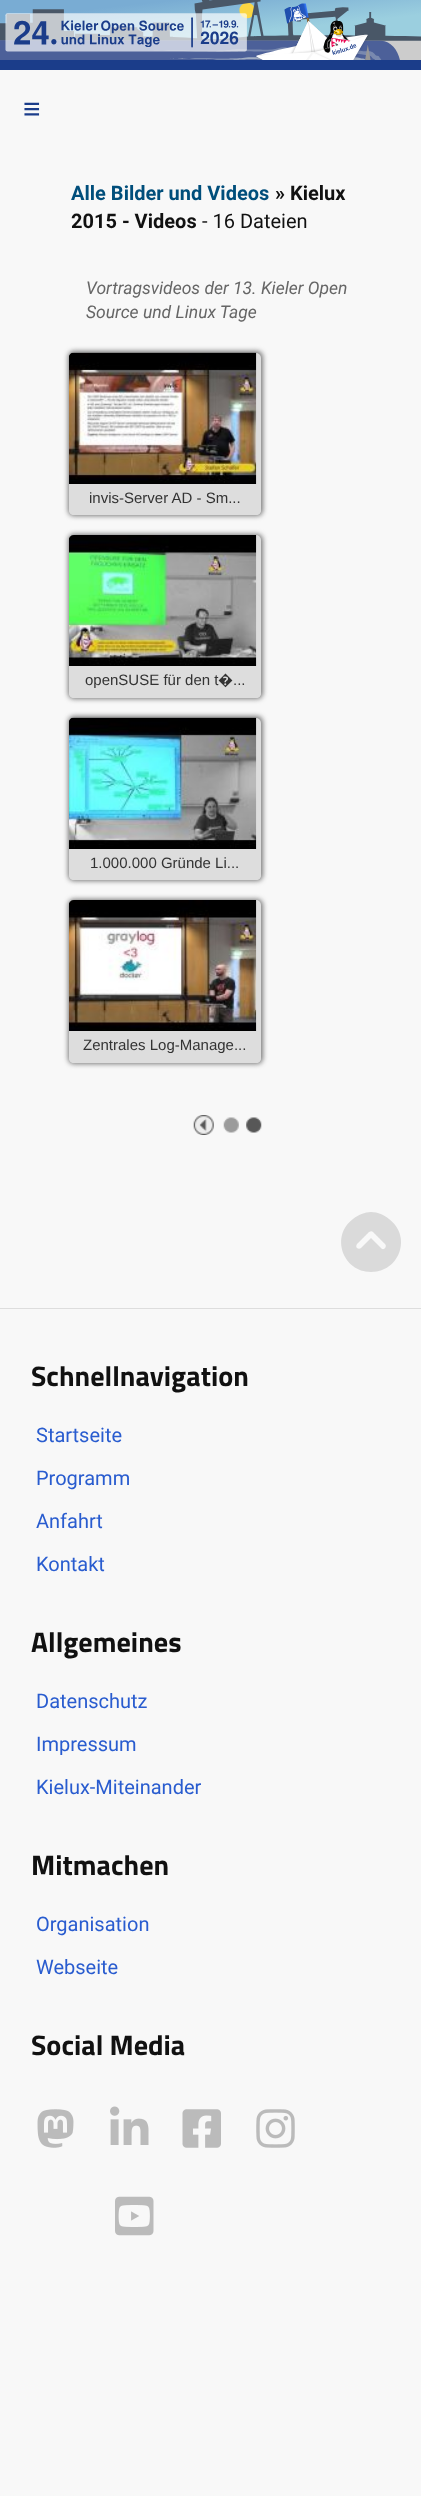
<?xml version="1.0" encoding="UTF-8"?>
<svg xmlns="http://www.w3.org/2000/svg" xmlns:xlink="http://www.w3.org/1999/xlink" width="421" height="2496">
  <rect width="100%" height="100%" fill="#f8f8f8" />
  <image x="0" y="0" width="421" height="60" xlink:href="image1.png" />
  <rect y="60" width="421" height="10" fill="#1b3d8a" />
  <rect x="68" y="351" width="195" height="165" rx="6" fill="#7a7a7a" filter="blur(2.5px)" />
  <rect x="69" y="353" width="192" height="162" rx="5" fill="#dddddd" />
  <image x="69" y="352" width="188" height="132" xlink:href="image2.png" />
  <path d="M 69 484 h 192 v 26 c 0 3 -2 5 -5 5 h -182 c -3 0 -5 -2 -5 -5 z" fill="#dddddd" />
  <rect x="68" y="534" width="195" height="165" rx="6" fill="#7a7a7a" filter="blur(2.5px)" />
  <rect x="69" y="535" width="192" height="163" rx="5" fill="#dddddd" />
  <image x="69" y="535" width="188" height="131" xlink:href="image3.png" />
  <path d="M 69 666 h 192 v 27 c 0 3 -2 5 -5 5 h -182 c -3 0 -5 -2 -5 -5 z" fill="#dddddd" />
  <rect x="68" y="716" width="195" height="165" rx="6" fill="#7a7a7a" filter="blur(2.5px)" />
  <rect x="69" y="718" width="192" height="162" rx="5" fill="#dddddd" />
  <image x="69" y="717" width="188" height="132" xlink:href="image4.png" />
  <path d="M 69 849 h 192 v 26 c 0 3 -2 5 -5 5 h -182 c -3 0 -5 -2 -5 -5 z" fill="#dddddd" />
  <rect x="68" y="899" width="195" height="165" rx="6" fill="#7a7a7a" filter="blur(2.5px)" />
  <rect x="69" y="900" width="192" height="163" rx="5" fill="#dddddd" />
  <image x="69" y="900" width="188" height="131" xlink:href="image5.png" />
  <path d="M 69 1031 h 192 v 27 c 0 3 -2 5 -5 5 h -182 c -3 0 -5 -2 -5 -5 z" fill="#dddddd" />
  <image x="193" y="1115" width="21" height="20" xlink:href="image6.png" />
  <image x="223" y="1117" width="16" height="16" xlink:href="image7.png" />
  <image x="246" y="1117" width="16" height="16" xlink:href="image8.png" />
  <path d="M 371 1272 c 29 0 41 -36 18 -53 c -5 -4 -11 -7 -18 -7 c -6 0 -13 3 -18 7 c -23 17 -10 53 18 53 z m 14 -28 c 2 2 0 6 -3 5 l -11 -11 l -10 10 c -1 1 -3 1 -4 0 c -1 -1 -1 -2 0 -4 l 12 -12 c 2 -1 3 -1 4 0 z" fill="#dadada" />
  <rect y="1308" width="421" height="1" fill="#dddddd" />
  <image x="37" y="2109" width="37" height="39" xlink:href="image9.png" />
  <image x="110" y="2106" width="39" height="39" xlink:href="image10.png" />
  <image x="182" y="2109" width="39" height="39" xlink:href="image11.png" />
  <image x="256" y="2109" width="39" height="39" xlink:href="image12.png" />
  <image x="115" y="2196" width="39" height="40" xlink:href="image13.png" />
  <text x="23" y="119" style="font-family: Liberation Sans; font-size: 30px; fill: #1b3d8a">≡</text>
  <text x="71" y="200" style="font-family: Roboto; font-size: 20px; font-weight: bold; fill: #004e7b">Alle Bilder und Videos</text>
  <text x="275" y="200" style="font-family: Roboto; font-size: 20px; font-weight: bold; fill: #111111">» Kielux</text>
  <text x="71" y="228" style="font-family: Roboto; font-size: 20px; font-weight: bold; fill: #111111">2015 - Videos</text>
  <text x="202" y="228" style="font-family: Roboto; font-size: 20px; fill: #111111">- 16 Dateien</text>
  <text x="86" y="294" style="font-family: Roboto; font-size: 17.5px; font-style: italic; fill: #666666">Vortragsvideos der 13. Kieler Open</text>
  <text x="86" y="318" style="font-family: Roboto; font-size: 17.5px; font-style: italic; fill: #666666">Source und Linux Tage</text>
  <text x="89" y="503" style="font-family: Liberation Sans; font-size: 15px; fill: #333333">invis-Server AD - Sm...</text>
  <text x="85" y="685" style="font-family: Liberation Sans; font-size: 15px; fill: #333333">openSUSE für den t</text>
  <text x="218" y="685" style="font-family: Noto Sans; font-size: 15px; fill: #333333">�</text>
  <text x="233" y="685" style="font-family: Liberation Sans; font-size: 15px; fill: #333333">...</text>
  <text x="90" y="868" style="font-family: Liberation Sans; font-size: 15px; fill: #333333">1.000.000 Gründe Li...</text>
  <text x="83" y="1050" style="font-family: Liberation Sans; font-size: 15px; fill: #333333">Zentrales Log-Manage...</text>
  <text x="31" y="1386" style="font-family: Titillium Web; font-size: 28.25px; font-weight: bold; fill: #111111">Schnellnavigation</text>
  <text x="36" y="1442" style="font-family: Roboto; font-size: 20px; fill: #295ccf">Startseite</text>
  <text x="36" y="1485" style="font-family: Roboto; font-size: 20px; fill: #295ccf">Programm</text>
  <text x="36" y="1528" style="font-family: Roboto; font-size: 20px; fill: #295ccf">Anfahrt</text>
  <text x="36" y="1571" style="font-family: Roboto; font-size: 20px; fill: #295ccf">Kontakt</text>
  <text x="31" y="1652" style="font-family: Titillium Web; font-size: 28.25px; font-weight: bold; fill: #111111">Allgemeines</text>
  <text x="36" y="1708" style="font-family: Roboto; font-size: 20px; fill: #295ccf">Datenschutz</text>
  <text x="36" y="1751" style="font-family: Roboto; font-size: 20px; fill: #295ccf">Impressum</text>
  <text x="36" y="1794" style="font-family: Roboto; font-size: 20px; fill: #295ccf">Kielux-Miteinander</text>
  <text x="31" y="1875" style="font-family: Titillium Web; font-size: 28.25px; font-weight: bold; fill: #111111">Mitmachen</text>
  <text x="36" y="1931" style="font-family: Roboto; font-size: 20px; fill: #295ccf">Organisation</text>
  <text x="36" y="1974" style="font-family: Roboto; font-size: 20px; fill: #295ccf">Webseite</text>
  <text x="31" y="2055" style="font-family: Titillium Web; font-size: 28.25px; font-weight: bold; fill: #111111">Social Media</text>
</svg>
